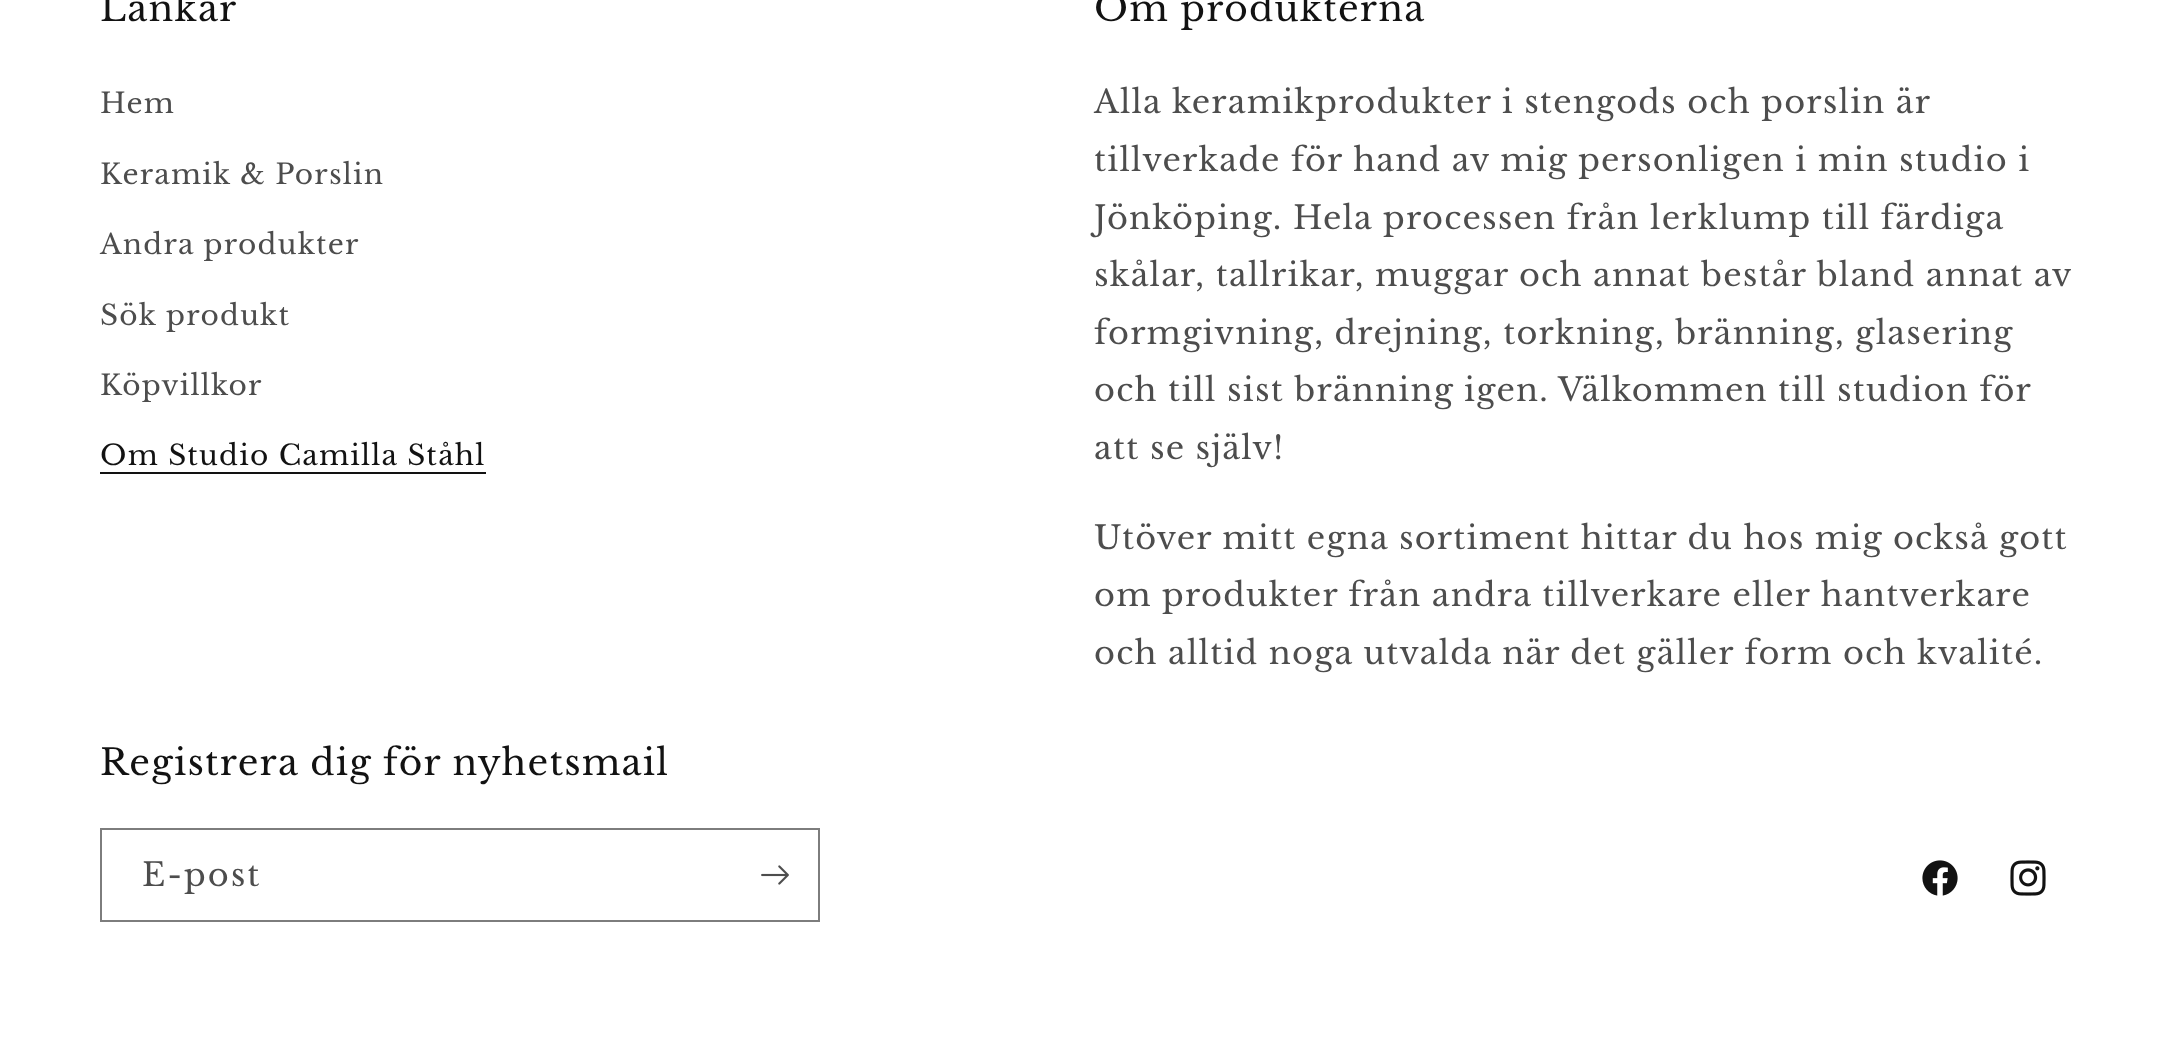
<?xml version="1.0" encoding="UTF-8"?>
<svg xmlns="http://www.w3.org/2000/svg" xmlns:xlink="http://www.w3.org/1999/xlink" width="2171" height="1050">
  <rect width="100%" height="100%" fill="#ffffff" />
  <rect x="100" y="472" width="386" height="2" fill="#121212" />
  <rect x="101" y="829" width="718" height="92" fill="none" stroke="#7d7d7d" stroke-width="2" />
  <image x="761" y="865" width="28" height="20" xlink:href="image1.png" />
  <image x="1922" y="860" width="36" height="36" xlink:href="image2.png" />
  <image x="2010" y="860" width="36" height="36" xlink:href="image3.png" />
  <text x="100" y="21" style="font-family: Libre Baskerville; font-size: 36px; letter-spacing: 1.2px; fill: #121212">Länkar</text>
  <text x="100" y="113" style="font-family: Libre Baskerville; font-size: 28px; letter-spacing: 1.2px; fill: #4d4d4d">Hem</text>
  <text x="100" y="184" style="font-family: Libre Baskerville; font-size: 28px; letter-spacing: 1.2px; fill: #4d4d4d">Keramik &amp; Porslin</text>
  <text x="100" y="254" style="font-family: Libre Baskerville; font-size: 28px; letter-spacing: 1.2px; fill: #4d4d4d">Andra produkter</text>
  <text x="100" y="325" style="font-family: Libre Baskerville; font-size: 28px; letter-spacing: 1.2px; fill: #4d4d4d">Sök produkt</text>
  <text x="100" y="395" style="font-family: Libre Baskerville; font-size: 28px; letter-spacing: 1.2px; fill: #4d4d4d">Köpvillkor</text>
  <text x="100" y="465" style="font-family: Libre Baskerville; font-size: 28px; letter-spacing: 1.2px; fill: #121212">Om Studio Camilla Ståhl</text>
  <text x="1094" y="21" style="font-family: Libre Baskerville; font-size: 36px; letter-spacing: 1.2px; fill: #121212">Om produkterna</text>
  <text x="1094" y="113" style="font-family: Libre Baskerville; font-size: 32px; letter-spacing: 1.2px; fill: #4d4d4d">Alla keramikprodukter i stengods och porslin är</text>
  <text x="1094" y="171" style="font-family: Libre Baskerville; font-size: 32px; letter-spacing: 1.2px; fill: #4d4d4d">tillverkade för hand av mig personligen i min studio i</text>
  <text x="1094" y="229" style="font-family: Libre Baskerville; font-size: 32px; letter-spacing: 1.2px; fill: #4d4d4d">Jönköping. Hela processen från lerklump till färdiga</text>
  <text x="1094" y="286" style="font-family: Libre Baskerville; font-size: 32px; letter-spacing: 1.2px; fill: #4d4d4d">skålar, tallrikar, muggar och annat består bland annat av</text>
  <text x="1094" y="344" style="font-family: Libre Baskerville; font-size: 32px; letter-spacing: 1.2px; fill: #4d4d4d">formgivning, drejning, torkning, bränning, glasering</text>
  <text x="1094" y="401" style="font-family: Libre Baskerville; font-size: 32px; letter-spacing: 1.2px; fill: #4d4d4d">och till sist bränning igen. Välkommen till studion för</text>
  <text x="1094" y="459" style="font-family: Libre Baskerville; font-size: 32px; letter-spacing: 1.2px; fill: #4d4d4d">att se själv!</text>
  <text x="1094" y="549" style="font-family: Libre Baskerville; font-size: 32px; letter-spacing: 1.2px; fill: #4d4d4d">Utöver mitt egna sortiment hittar du hos mig också gott</text>
  <text x="1094" y="606" style="font-family: Libre Baskerville; font-size: 32px; letter-spacing: 1.2px; fill: #4d4d4d">om produkter från andra tillverkare eller hantverkare</text>
  <text x="1094" y="664" style="font-family: Libre Baskerville; font-size: 32px; letter-spacing: 1.2px; fill: #4d4d4d">och alltid noga utvalda när det gäller form och kvalité.</text>
  <text x="100" y="775" style="font-family: Libre Baskerville; font-size: 36px; letter-spacing: 1.2px; fill: #121212">Registrera dig för nyhetsmail</text>
  <text x="142" y="886" style="font-family: Libre Baskerville; font-size: 32px; letter-spacing: 2px; fill: #4d4d4d">E-post</text>
</svg>
